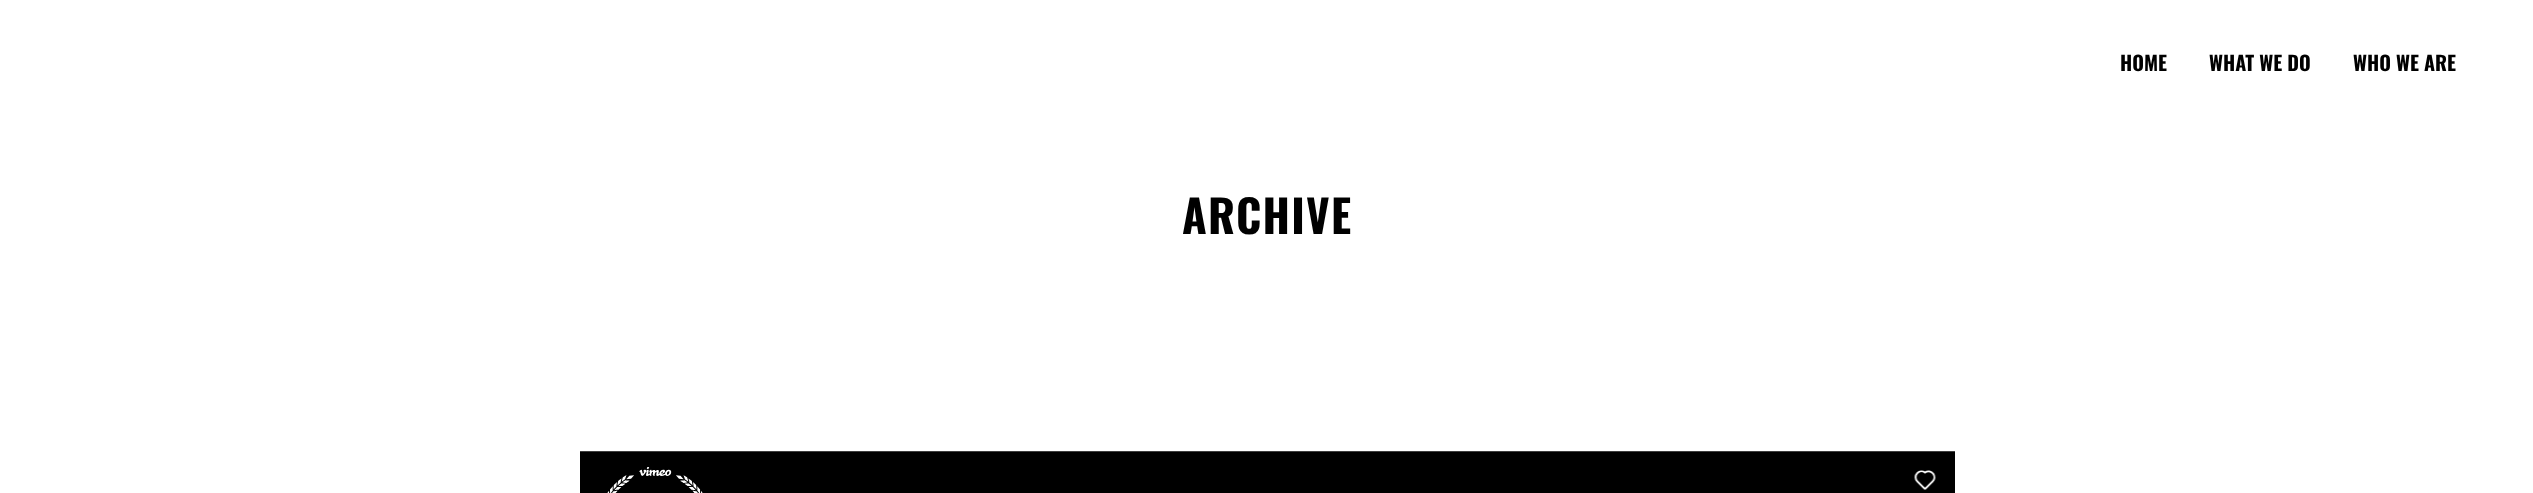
<?xml version="1.0" encoding="UTF-8"?>
<svg xmlns="http://www.w3.org/2000/svg" xmlns:xlink="http://www.w3.org/1999/xlink" width="2533" height="493">
  <rect width="100%" height="100%" fill="#ffffff" />
  <image x="580" y="451" width="1375" height="42" xlink:href="image1.png" />
  <text x="2120" y="71" style="font-family: Oswald; font-size: 20px; font-weight: bold; fill: #000000">HOME</text>
  <text x="2209" y="71" style="font-family: Oswald; font-size: 20px; font-weight: bold; fill: #000000">WHAT WE DO</text>
  <text x="2353" y="71" style="font-family: Oswald; font-size: 20px; font-weight: bold; fill: #000000">WHO WE ARE</text>
  <text x="1182" y="234" style="font-family: Oswald; font-size: 45px; font-weight: bold; letter-spacing: 1.25px; fill: #000000">ARCHIVE</text>
</svg>
